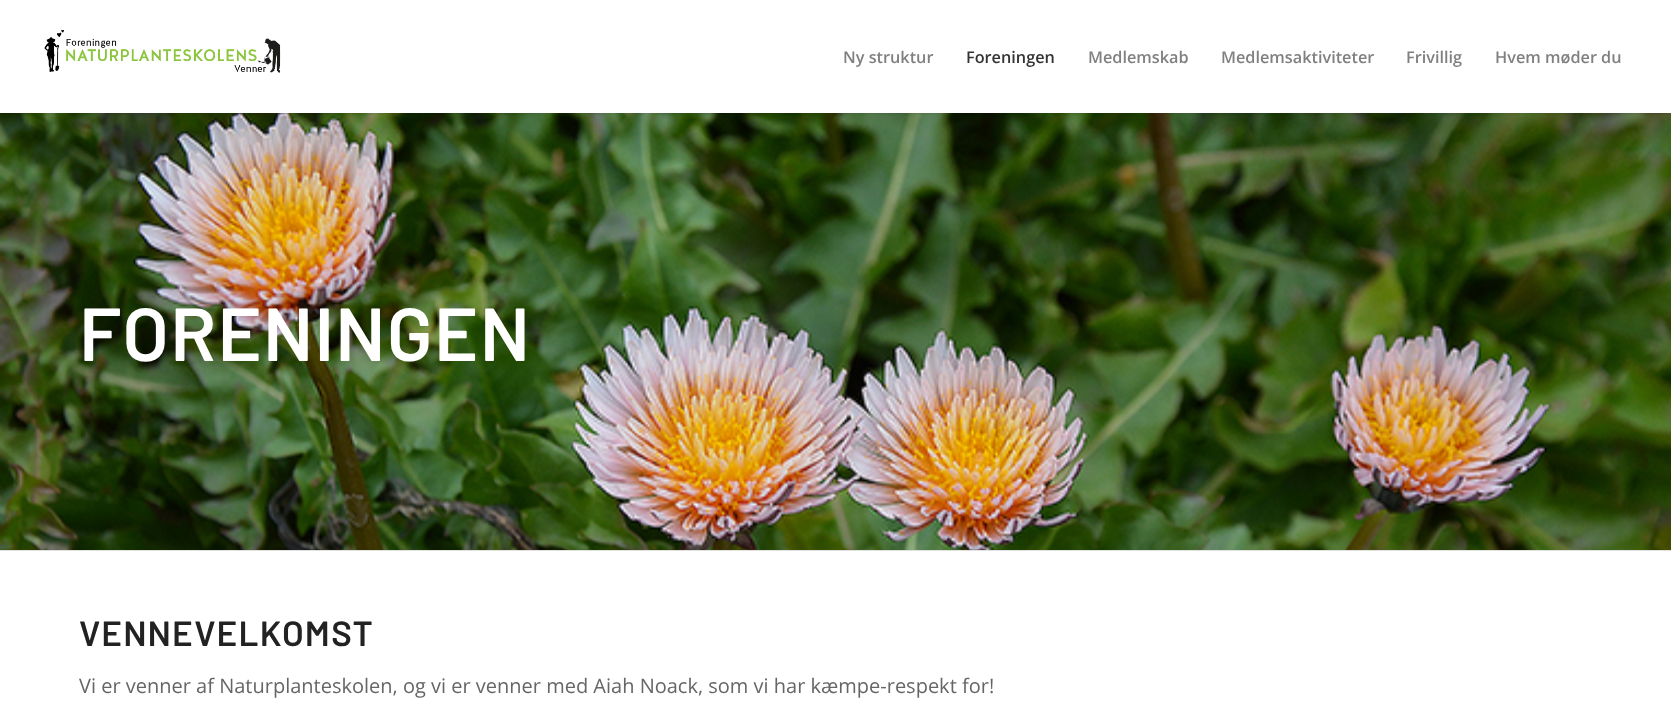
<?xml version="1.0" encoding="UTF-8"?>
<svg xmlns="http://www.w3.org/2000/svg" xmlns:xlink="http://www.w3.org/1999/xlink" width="1671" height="726">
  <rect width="100%" height="100%" fill="#ffffff" />
  <image x="0" y="113" width="1671" height="437" xlink:href="image2.png" />
  <rect x="-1" y="-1" width="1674" height="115" fill="#000000" fill-opacity="0.1" filter="blur(1px)" />
  <rect width="1671" height="113" fill="#ffffff" />
  <image x="44" y="30" width="237" height="43" xlink:href="image1.png" />
  <rect y="550" width="1671" height="1" fill="#e1e1e1" />
  <text x="843" y="63" style="font-family: Open Sans; font-size: 16.25px; font-weight: 600; fill: #808080">Ny struktur</text>
  <text x="966" y="63" style="font-family: Open Sans; font-size: 16.25px; font-weight: 600; fill: #333333">Foreningen</text>
  <text x="1088" y="63" style="font-family: Open Sans; font-size: 16.25px; font-weight: 600; fill: #808080">Medlemskab</text>
  <text x="1221" y="63" style="font-family: Open Sans; font-size: 16.25px; font-weight: 600; fill: #808080">Medlemsaktiviteter</text>
  <text x="1406" y="63" style="font-family: Open Sans; font-size: 16.25px; font-weight: 600; fill: #808080">Frivillig</text>
  <text x="1495" y="63" style="font-family: Open Sans; font-size: 16.25px; font-weight: 600; fill: #808080">Hvem møder du</text>
  <text x="79" y="361" style="font-family: Barlow; font-size: 75px; font-weight: 600; letter-spacing: 1.25px; fill: #ffffff">FORENINGEN</text>
  <text x="79" y="646" style="font-family: Barlow; font-size: 35px; font-weight: 600; letter-spacing: 1.25px; fill: #222222">VENNEVELKOMST</text>
  <text x="79" y="693" style="font-family: Open Sans; font-size: 20px; fill: #666666">Vi er venner af Naturplanteskolen, og vi er venner med Aiah Noack, som vi har kæmpe-respekt for!</text>
</svg>
